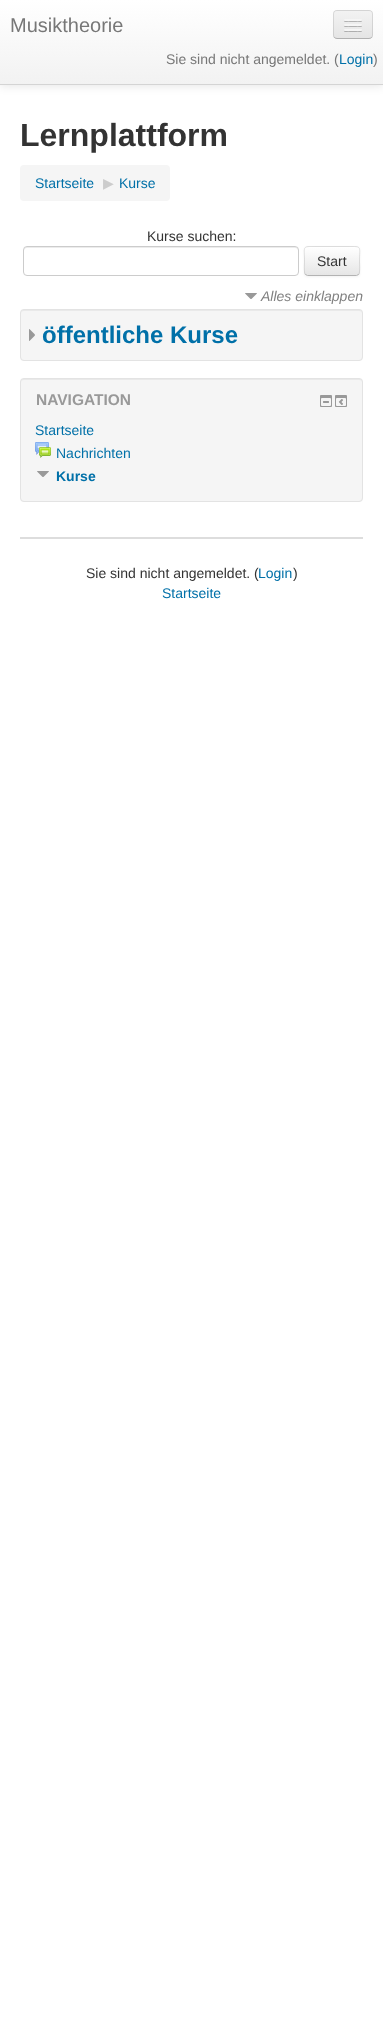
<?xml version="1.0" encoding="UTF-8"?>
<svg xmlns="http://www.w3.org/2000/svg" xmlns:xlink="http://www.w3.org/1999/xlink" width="383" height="2029">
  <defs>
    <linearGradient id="g1" gradientUnits="userSpaceOnUse" x1="192" y1="0" x2="192" y2="84"><stop offset="0" stop-color="#ffffff" /><stop offset="1" stop-color="#f2f2f2" /></linearGradient>
    <clipPath id="clip1"><rect x="333" y="10" width="40" height="29" rx="4" /></clipPath>
    <linearGradient id="g2" gradientUnits="userSpaceOnUse" x1="353" y1="11" x2="353" y2="38"><stop offset="0" stop-color="#f2f2f2" /><stop offset="1" stop-color="#e5e5e5" /></linearGradient>
    <clipPath id="clip2"><rect x="304" y="246" width="56" height="30" rx="4" /></clipPath>
    <linearGradient id="g3" gradientUnits="userSpaceOnUse" x1="332" y1="247" x2="332" y2="275"><stop offset="0" stop-color="#ffffff" /><stop offset="1" stop-color="#e6e6e6" /></linearGradient>
  </defs>
  <rect width="100%" height="100%" fill="#ffffff" />
  <rect y="1" width="383" height="85" fill="#000000" fill-opacity="0.1" filter="blur(5px)" />
  <rect width="383" height="84" fill="url(#g1)" />
  <rect y="84" width="383" height="1" fill="#d4d4d4" />
  <rect x="333" y="10" width="40" height="29" rx="4" fill="#ededed" />
  <g clip-path="url(#clip1)">
    <rect x="333" y="11" width="40" height="27" fill="url(#g2)" />
  </g>
  <path d="M 371.5 37.5 c -0.5 0.5 -1.5 1 -2.5 1 h -32 c -1 0 -2 -0.5 -2.5 -1" fill="none" stroke="#000000" stroke-opacity="0.25" />
  <path d="M 334.5 37.5 c -0.5 -0.5 -1 -1.5 -1 -2.5 v -21 c 0 -1 0.5 -2 1 -2.5 c 0.5 -0.5 1.5 -1 2.5 -1 h 32 c 1 0 2 0.5 2.5 1 c 0.5 0.5 1 1.5 1 2.5 v 21 c 0 1 -0.5 2 -1 2.5" fill="none" stroke="#000000" stroke-opacity="0.1" />
  <path d="M 344 20.5 c -1 2 3.5 1.5 3.5 1.5 h 11 c 0 0 4.5 0.5 3.5 -1.5 c -1 1 -7.5 0.5 -9 0.5 c -1.5 0 -8 0.5 -9 -0.5 z" fill="#b2b2b2" />
  <rect x="344" y="19" width="18" height="2" rx="1" fill="#f5f5f5" />
  <path d="M 344 25.5 c -1 2 3.5 1.5 3.5 1.5 h 11 c 0 0 4.5 0.5 3.5 -1.5 c -1 1 -7.5 0.5 -9 0.5 c -1.5 0 -8 0.5 -9 -0.5 z" fill="#b0b0b0" />
  <rect x="344" y="24" width="18" height="2" rx="1" fill="#f5f5f5" />
  <path d="M 344 30.5 c -1 2 3.5 1.5 3.5 1.5 h 11 c 0 0 4.5 0.5 3.5 -1.5 c -1 1 -7.5 0.5 -9 0.5 c -1.5 0 -8 0.5 -9 -0.5 z" fill="#aeaeae" />
  <rect x="344" y="29" width="18" height="2" rx="1" fill="#f5f5f5" />
  <rect x="20" y="165" width="150" height="36" rx="4" fill="#f5f5f5" />
  <path d="M 27 248 h 268 c 2 0 3 1 3 3 v -1 c 0 -2 -1 -3 -3 -3 h -268 c -2 0 -3 1 -3 3 v 1 c 0 -2 1 -3 3 -3 z" fill="#ececec" />
  <rect x="23.5" y="246.5" width="275" height="29" rx="3.5" fill="none" stroke="#cccccc" />
  <rect x="304" y="247" width="56" height="30" rx="4" fill="#000000" fill-opacity="0.05" filter="blur(1px)" />
  <rect x="304" y="246" width="56" height="30" rx="4" fill="#f5f5f5" />
  <g clip-path="url(#clip2)">
    <rect x="304" y="247" width="56" height="28" fill="url(#g3)" />
  </g>
  <path d="M 308 248 h 48 c 2 0 3 1 3 3 c 0 -6 -7 -4 -11 -4 h -32 c -4 0 -11 -2 -11 4 c 0 -2 1 -3 3 -3 z" fill="#ffffff" />
  <path d="M 358.5 274.5 l -2 1 h -49 l -2 -1" fill="none" stroke="#b3b3b3" />
  <path d="M 305.5 274.5 c -2 -2 -1 -10.5 -1 -13.5 c 0 -15 -3 -14.5 11.5 -14.5 h 32 c 14.5 0 11.5 -0.5 11.5 14.5 c 0 3 1 11.5 -1 13.5" fill="none" stroke="#000000" stroke-opacity="0.1" />
  <image x="245" y="293" width="12" height="6" xlink:href="image1.png" />
  <rect x="20" y="309" width="343" height="52" rx="4" fill="#f5f5f5" />
  <path d="M 24 311 h 335 c 2 0 3 1 3 3 c 0 -2 -1 -4 -3 -4 h -335 c -2 0 -3 2 -3 4 c 0 -2 1 -3 3 -3 z" fill="#e9e9e9" />
  <rect x="20.5" y="309.5" width="342" height="51" rx="3.5" fill="none" stroke="#e3e3e3" />
  <image x="29" y="329" width="6" height="12" xlink:href="image2.png" />
  <rect x="20" y="378" width="343" height="124" rx="4" fill="#f5f5f5" />
  <path d="M 24 380 h 335 c 2 0 3 1 3 3 c 0 -2 -1 -4 -3 -4 h -335 c -2 0 -3 2 -3 4 c 0 -2 1 -3 3 -3 z" fill="#e9e9e9" />
  <rect x="20.5" y="378.5" width="342" height="123" rx="3.5" fill="none" stroke="#e3e3e3" />
  <image x="320" y="395" width="12" height="12" xlink:href="image3.png" />
  <image x="335" y="395" width="12" height="12" xlink:href="image4.png" />
  <image x="35" y="442" width="16" height="16" xlink:href="image5.png" />
  <image x="37" y="471" width="12" height="6" xlink:href="image6.png" />
  <rect x="20" y="537" width="343" height="2" fill="#dddddd" />
  <text x="10" y="32" style="font-family: Liberation Sans; font-size: 20px; fill: #777777">Musiktheorie</text>
  <text x="166" y="64" style="font-family: Liberation Sans; font-size: 14px; fill: #777777">Sie sind nicht angemeldet. (</text>
  <text x="339" y="64" style="font-family: Liberation Sans; font-size: 14px; fill: #0070a8">Login</text>
  <text x="373" y="64" style="font-family: Liberation Sans; font-size: 14px; fill: #777777">)</text>
  <text x="20" y="146" style="font-family: Liberation Sans; font-size: 32px; font-weight: bold; fill: #333333">Lernplattform</text>
  <text x="35" y="188" style="font-family: Liberation Sans; font-size: 14px; fill: #0070a8">Startseite</text>
  <text x="103" y="188" style="font-family: DejaVu Sans; font-size: 14px; fill: #cccccc">▶︎</text>
  <text x="119" y="188" style="font-family: Liberation Sans; font-size: 14px; fill: #0070a8">Kurse</text>
  <text x="147" y="241" style="font-family: Liberation Sans; font-size: 14px; fill: #333333">Kurse suchen:</text>
  <text x="317" y="266" style="font-family: Liberation Sans; font-size: 14px; fill: #333333">Start</text>
  <text x="261" y="301" style="font-family: Liberation Sans; font-size: 14px; font-style: italic; fill: #808080">Alles einklappen</text>
  <text x="42" y="343" style="font-family: Liberation Sans; font-size: 24px; font-weight: bold; fill: #0070a8">öffentliche Kurse</text>
  <text x="36" y="405" style="font-family: Liberation Sans; font-size: 15.5px; font-weight: bold; fill: #999999">NAVIGATION</text>
  <text x="35" y="435" style="font-family: Liberation Sans; font-size: 14px; fill: #0070a8">Startseite</text>
  <text x="56" y="458" style="font-family: Liberation Sans; font-size: 14px; fill: #0070a8">Nachrichten</text>
  <text x="56" y="481" style="font-family: Liberation Sans; font-size: 14px; font-weight: bold; fill: #0070a8">Kurse</text>
  <text x="86" y="578" style="font-family: Liberation Sans; font-size: 14px; fill: #333333">Sie sind nicht angemeldet. (</text>
  <text x="258" y="578" style="font-family: Liberation Sans; font-size: 14px; fill: #0070a8">Login</text>
  <text x="293" y="578" style="font-family: Liberation Sans; font-size: 14px; fill: #333333">)</text>
  <text x="162" y="598" style="font-family: Liberation Sans; font-size: 14px; fill: #0070a8">Startseite</text>
</svg>
